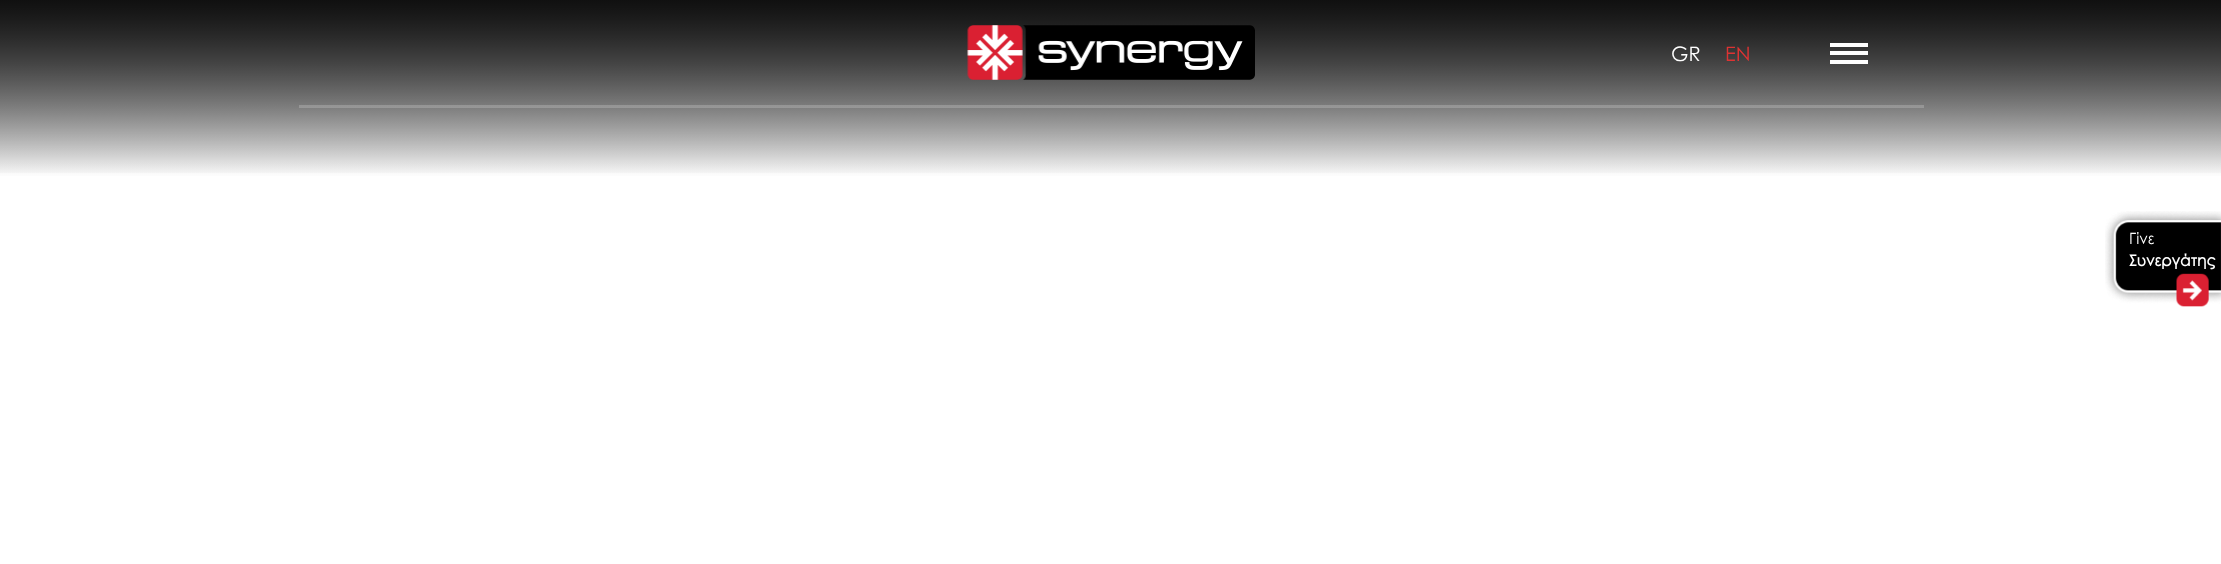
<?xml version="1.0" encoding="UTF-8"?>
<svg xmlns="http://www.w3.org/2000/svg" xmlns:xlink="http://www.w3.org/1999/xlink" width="2221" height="564">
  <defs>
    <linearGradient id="g1" gradientUnits="userSpaceOnUse" x1="1111" y1="0" x2="1111" y2="178"><stop offset="0" stop-color="#404040" /><stop offset="1" stop-color="#ffffff" /></linearGradient>
    <linearGradient id="g2" gradientUnits="userSpaceOnUse" x1="1111" y1="0" x2="1111" y2="178"><stop offset="0" stop-color="#000000" stop-opacity="0.75" /><stop offset="1" stop-color="#000000" stop-opacity="0" /></linearGradient>
  </defs>
  <rect width="100%" height="100%" fill="#ffffff" />
  <rect width="2221" height="176" fill="url(#g1)" />
  <rect width="2221" height="173" fill="url(#g2)" />
  <rect x="299" y="105" width="1625" height="3" fill="#d2d2d2" fill-opacity="0.3" />
  <image x="967" y="25" width="288" height="55" xlink:href="image1.png" />
  <rect x="1830" y="43" width="38" height="4" fill="#ffffff" />
  <rect x="1830" y="51" width="38" height="4" fill="#ffffff" />
  <rect x="1830" y="60" width="38" height="4" fill="#ffffff" />
  <image x="2105" y="211" width="116" height="96" xlink:href="image2.png" />
  <text x="1671" y="61" style="font-family: Century Gothic; font-size: 20px; fill: #ffffff">GR</text>
  <text x="1725" y="61" style="font-family: Century Gothic; font-size: 20px; fill: #dd3333">EN</text>
  <text x="2129" y="244" style="font-family: Century Gothic; font-size: 15.5px; fill: #ffffff">Γίνε</text>
  <text x="2129" y="266" style="font-family: Century Gothic; font-size: 15.5px; font-weight: bold; fill: #ffffff">Συνεργάτης</text>
</svg>
